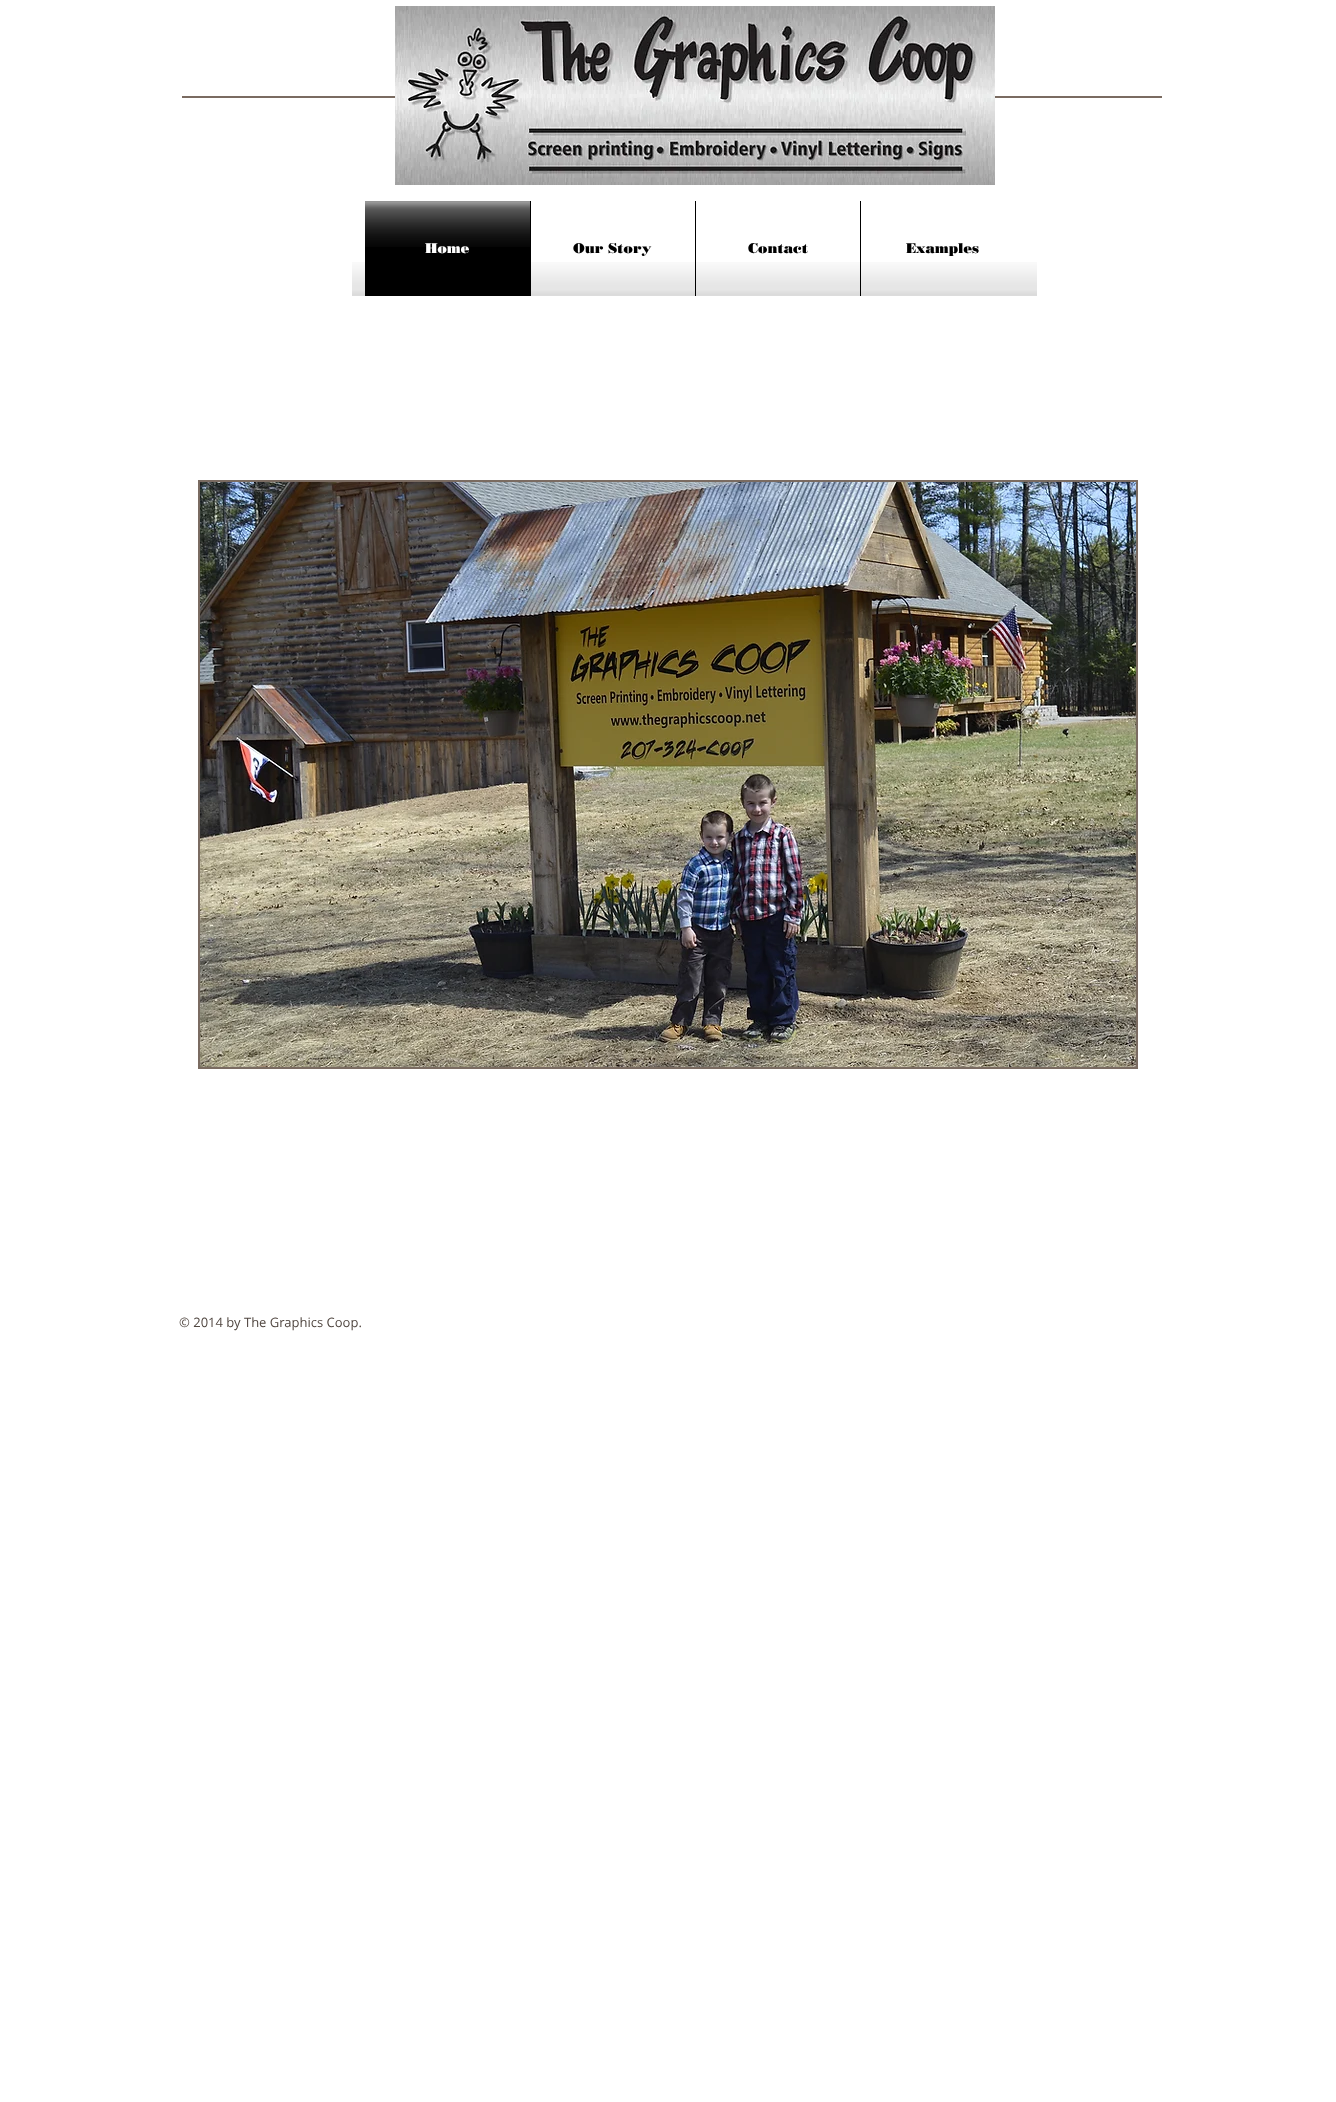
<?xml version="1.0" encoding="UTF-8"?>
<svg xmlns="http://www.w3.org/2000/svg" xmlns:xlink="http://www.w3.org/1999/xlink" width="1336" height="2102">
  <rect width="100%" height="100%" fill="#ffffff" />
  <rect x="182" y="96" width="980" height="2" fill="#7a6b61" />
  <image x="395" y="6" width="600" height="179" xlink:href="image1.png" />
  <image x="352" y="262" width="685" height="34" xlink:href="image2.png" />
  <rect x="365" y="201" width="166" height="95" fill="#000000" />
  <rect x="531" y="262" width="164" height="34" fill="#ffffff" />
  <rect x="574" y="243" width="73" height="5" fill="#ffffff" fill-opacity="0.03" />
  <image x="531" y="262" width="164" height="34" xlink:href="image4.png" />
  <rect x="696" y="262" width="164" height="34" fill="#ffffff" />
  <rect x="695" y="201" width="1" height="95" fill="#000000" />
  <rect x="748" y="243" width="57" height="5" fill="#ffffff" fill-opacity="0.03" />
  <image x="696" y="262" width="164" height="34" xlink:href="image4.png" />
  <rect x="861" y="262" width="164" height="34" fill="#ffffff" />
  <rect x="860" y="201" width="1" height="95" fill="#000000" />
  <rect x="907" y="243" width="67" height="5" fill="#ffffff" fill-opacity="0.03" />
  <image x="861" y="262" width="164" height="34" xlink:href="image4.png" />
  <rect x="198" y="480" width="940" height="589" fill="#7a6b61" />
  <image x="200" y="482" width="936" height="585" xlink:href="image5.png" />
  <text x="425" y="253" style="font-family: 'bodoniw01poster'; font-size: 14px; font-weight: 900; fill: #ffffff">Home</text>
  <image x="365" y="201" width="165" height="46" xlink:href="image3.png" />
  <text x="573" y="253" style="font-family: 'bodoniw01poster'; font-size: 14px; font-weight: 900; fill: #000000">Our Story</text>
  <text x="748" y="253" style="font-family: 'bodoniw01poster'; font-size: 14px; font-weight: 900; fill: #000000">Contact</text>
  <text x="906" y="253" style="font-family: 'bodoniw01poster'; font-size: 14px; font-weight: 900; fill: #000000">Examples</text>
  <text x="1109" y="1054" style="font-family: Liberation Sans; font-size: 12px; fill: #898475">1/4</text>
  <text x="179" y="1327" style="font-family: Open Sans; font-size: 13px; fill: #514741">© 2014 by The Graphics Coop.</text>
</svg>
